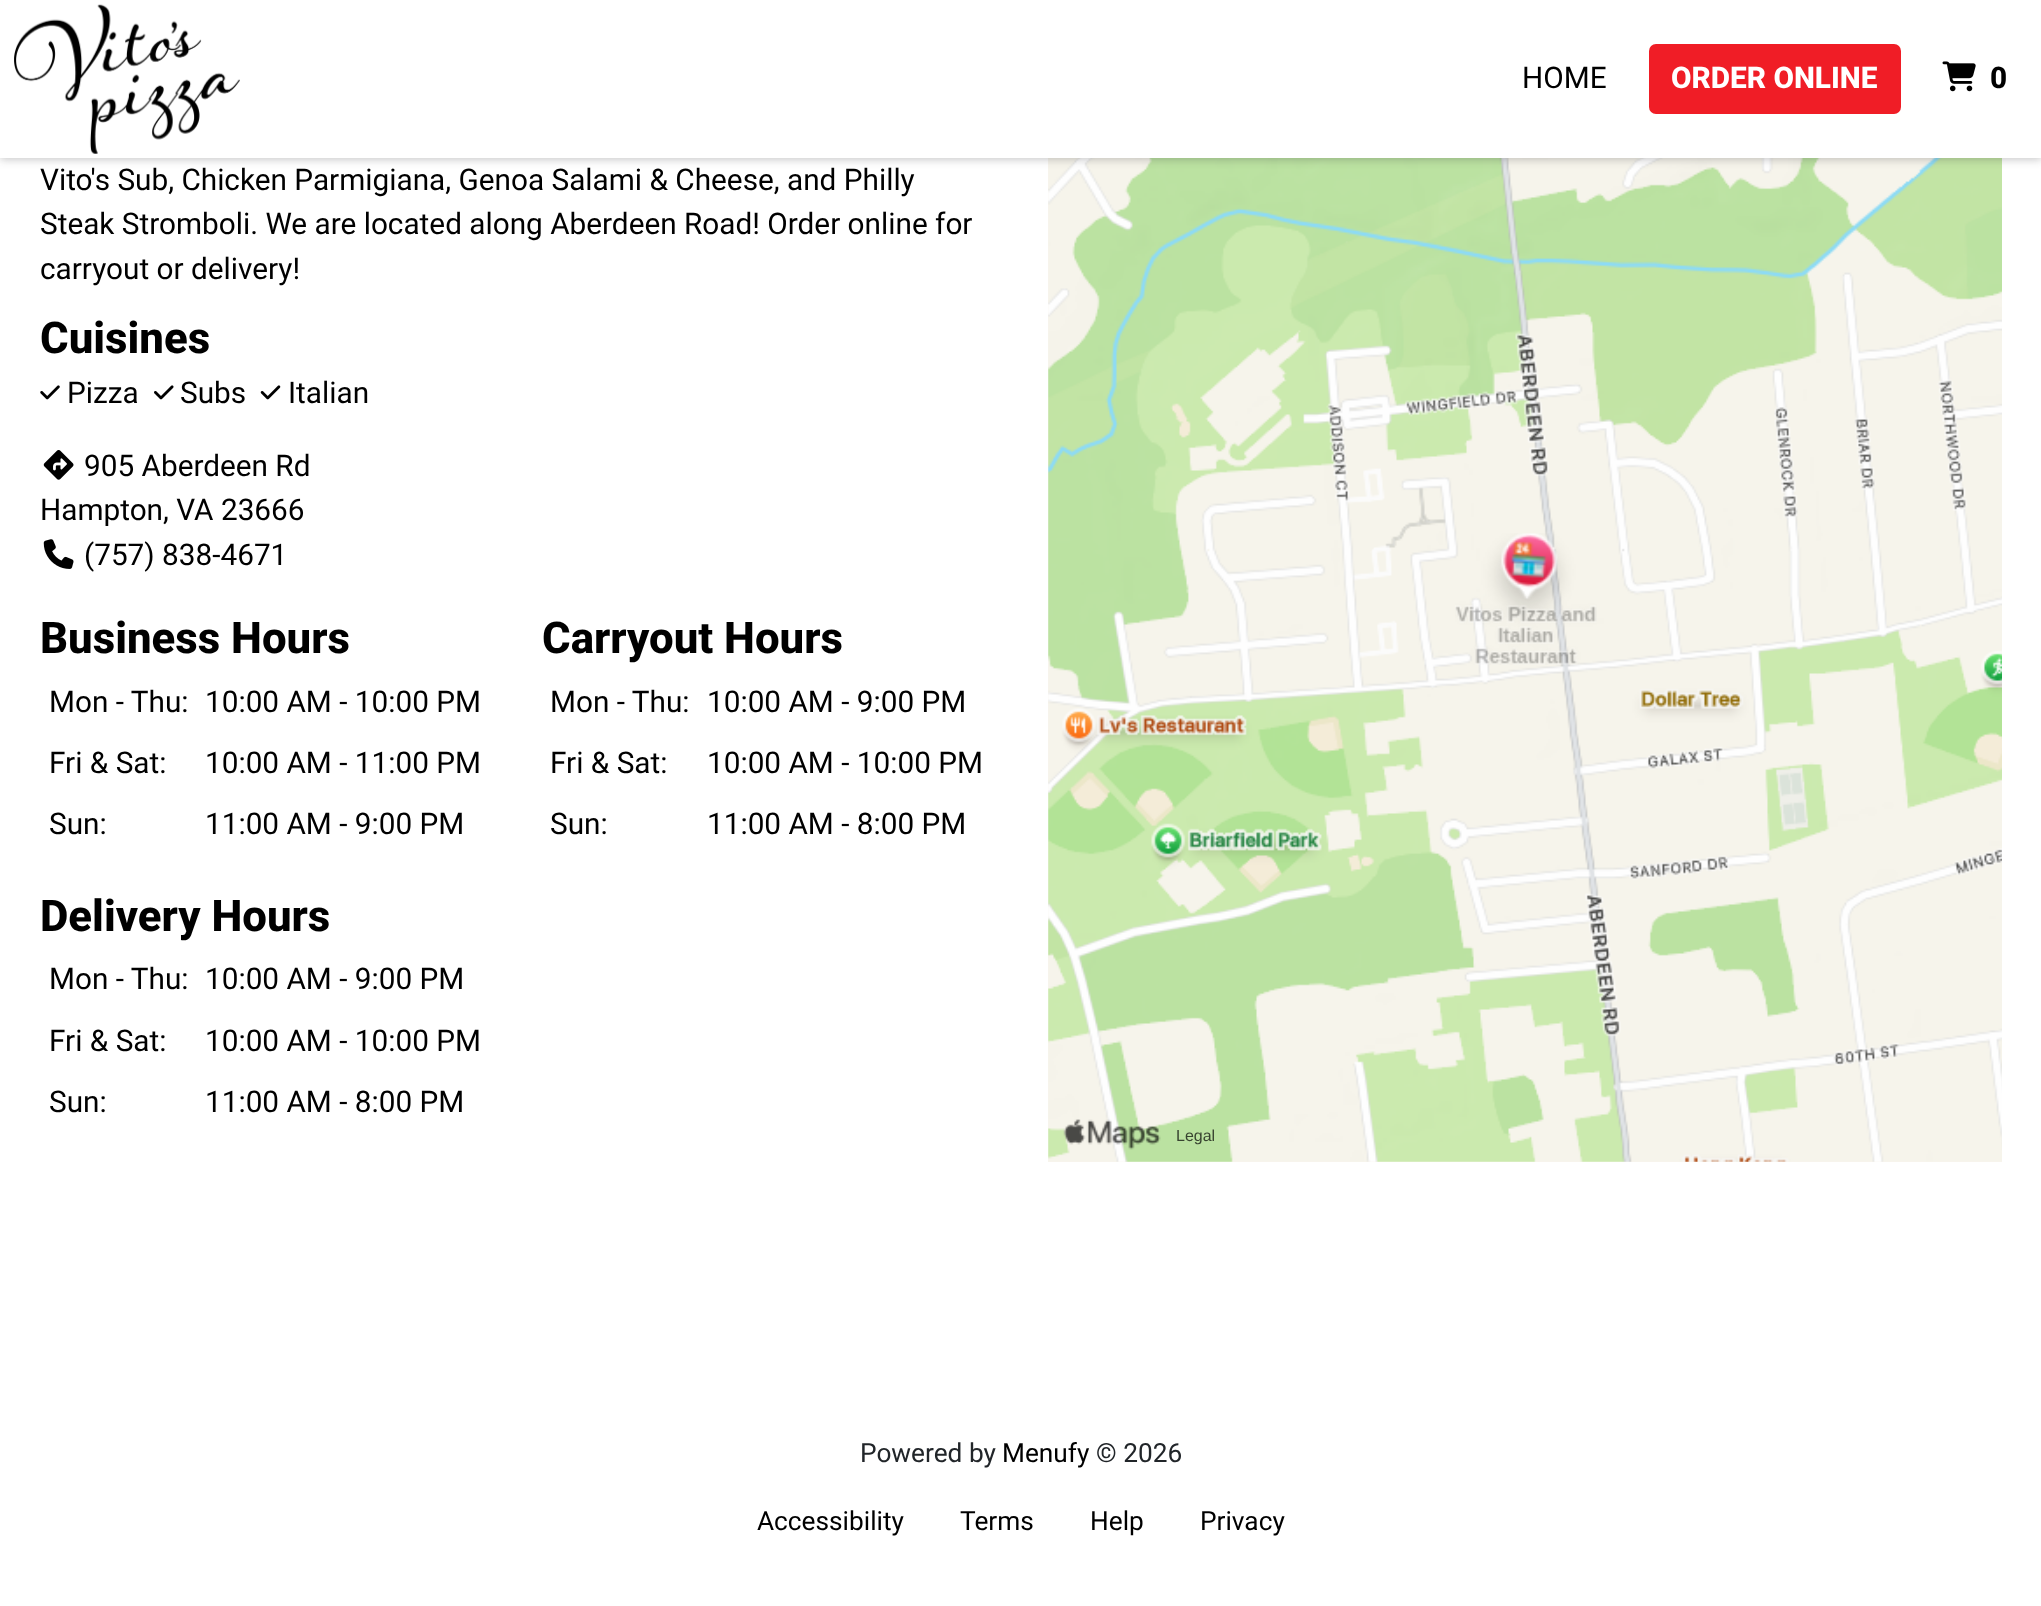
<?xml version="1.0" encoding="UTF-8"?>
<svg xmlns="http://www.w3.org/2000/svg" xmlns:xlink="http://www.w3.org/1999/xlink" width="2041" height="1606">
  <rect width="100%" height="100%" fill="#ffffff" />
  <rect x="1048" y="158" width="954" height="1004" fill="#f9f5ed" />
  <image x="1048" y="158" width="954" height="1004" xlink:href="image8.png" />
  <rect y="2" width="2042" height="157" fill="#202124" fill-opacity="0.28" filter="blur(5px)" />
  <rect width="2041" height="158" fill="#ffffff" />
  <image x="14" y="4" width="226" height="150" xlink:href="image1.png" />
  <rect x="1649" y="44" width="252" height="70" rx="7" fill="#f01d26" />
  <image x="1942" y="61" width="34" height="31" xlink:href="image2.png" />
  <image x="40" y="385" width="20" height="15" xlink:href="image3.png" />
  <image x="154" y="385" width="20" height="15" xlink:href="image4.png" />
  <image x="260" y="385" width="21" height="15" xlink:href="image5.png" />
  <image x="43" y="450" width="31" height="30" xlink:href="image6.png" />
  <image x="43" y="539" width="31" height="30" xlink:href="image7.png" />
  <image x="1455" y="533" width="142" height="132" xlink:href="image9.png" />
  <image x="1063" y="1119" width="98" height="31" xlink:href="image10.png" />
  <text x="1522" y="88" style="font-family: Roboto; font-size: 29.75px; fill: #000000">HOME</text>
  <text x="1671" y="88" style="font-family: Roboto; font-size: 29.75px; font-weight: 800; fill: #ffffff">ORDER ONLINE</text>
  <text x="1990" y="88" style="font-family: Roboto; font-size: 29.75px; font-weight: 800; fill: #000000">0</text>
  <text x="40" y="190" style="font-family: Roboto; font-size: 29.75px; fill: #000000">Vito's Sub, Chicken Parmigiana, Genoa Salami &amp; Cheese, and Philly</text>
  <text x="40" y="234" style="font-family: Roboto; font-size: 29.75px; fill: #000000">Steak Stromboli. We are located along Aberdeen Road! Order online for</text>
  <text x="40" y="279" style="font-family: Roboto; font-size: 29.75px; fill: #000000">carryout or delivery!</text>
  <text x="40" y="353" style="font-family: Roboto; font-size: 43.75px; font-weight: 800; fill: #000000">Cuisines</text>
  <text x="67" y="403" style="font-family: Roboto; font-size: 29.75px; fill: #000000">Pizza</text>
  <text x="180" y="403" style="font-family: Roboto; font-size: 29.75px; fill: #000000">Subs</text>
  <text x="288" y="403" style="font-family: Roboto; font-size: 29.75px; fill: #000000">Italian</text>
  <text x="84" y="476" style="font-family: Roboto; font-size: 29.75px; fill: #000000">905 Aberdeen Rd</text>
  <text x="40" y="520" style="font-family: Roboto; font-size: 29.75px; fill: #000000">Hampton, VA 23666</text>
  <text x="84" y="565" style="font-family: Roboto; font-size: 29.75px; fill: #000000">(757) 838-4671</text>
  <text x="40" y="653" style="font-family: Roboto; font-size: 43.75px; font-weight: 800; fill: #000000">Business Hours</text>
  <text x="49" y="712" style="font-family: Roboto; font-size: 29.75px; fill: #000000">Mon - Thu:</text>
  <text x="205" y="712" style="font-family: Roboto; font-size: 29.75px; fill: #000000">10:00 AM - 10:00 PM</text>
  <text x="49" y="773" style="font-family: Roboto; font-size: 29.75px; fill: #000000">Fri &amp; Sat:</text>
  <text x="205" y="773" style="font-family: Roboto; font-size: 29.75px; fill: #000000">10:00 AM - 11:00 PM</text>
  <text x="49" y="834" style="font-family: Roboto; font-size: 29.75px; fill: #000000">Sun:</text>
  <text x="205" y="834" style="font-family: Roboto; font-size: 29.75px; fill: #000000">11:00 AM - 9:00 PM</text>
  <text x="542" y="653" style="font-family: Roboto; font-size: 43.75px; font-weight: 800; fill: #000000">Carryout Hours</text>
  <text x="550" y="712" style="font-family: Roboto; font-size: 29.75px; fill: #000000">Mon - Thu:</text>
  <text x="707" y="712" style="font-family: Roboto; font-size: 29.75px; fill: #000000">10:00 AM - 9:00 PM</text>
  <text x="550" y="773" style="font-family: Roboto; font-size: 29.75px; fill: #000000">Fri &amp; Sat:</text>
  <text x="707" y="773" style="font-family: Roboto; font-size: 29.75px; fill: #000000">10:00 AM - 10:00 PM</text>
  <text x="550" y="834" style="font-family: Roboto; font-size: 29.75px; fill: #000000">Sun:</text>
  <text x="707" y="834" style="font-family: Roboto; font-size: 29.75px; fill: #000000">11:00 AM - 8:00 PM</text>
  <text x="40" y="931" style="font-family: Roboto; font-size: 43.75px; font-weight: 800; fill: #000000">Delivery Hours</text>
  <text x="49" y="989" style="font-family: Roboto; font-size: 29.75px; fill: #000000">Mon - Thu:</text>
  <text x="205" y="989" style="font-family: Roboto; font-size: 29.75px; fill: #000000">10:00 AM - 9:00 PM</text>
  <text x="49" y="1051" style="font-family: Roboto; font-size: 29.75px; fill: #000000">Fri &amp; Sat:</text>
  <text x="205" y="1051" style="font-family: Roboto; font-size: 29.75px; fill: #000000">10:00 AM - 10:00 PM</text>
  <text x="49" y="1112" style="font-family: Roboto; font-size: 29.75px; fill: #000000">Sun:</text>
  <text x="205" y="1112" style="font-family: Roboto; font-size: 29.75px; fill: #000000">11:00 AM - 8:00 PM</text>
  <text x="1176" y="1141" style="font-family: Liberation Sans; font-size: 16px; fill: #384430">Legal</text>
  <text x="860" y="1462" style="font-family: Roboto; font-size: 26.25px; fill: #212529">Powered by</text>
  <text x="1002" y="1462" style="font-family: Roboto; font-size: 26.25px; fill: #000000">Menufy</text>
  <text x="1096" y="1462" style="font-family: Roboto; font-size: 26.25px; fill: #212529">© 2026</text>
  <text x="757" y="1530" style="font-family: Roboto; font-size: 26.25px; fill: #000000">Accessibility</text>
  <text x="960" y="1530" style="font-family: Roboto; font-size: 26.25px; fill: #000000">Terms</text>
  <text x="1090" y="1530" style="font-family: Roboto; font-size: 26.25px; fill: #000000">Help</text>
  <text x="1200" y="1530" style="font-family: Roboto; font-size: 26.25px; fill: #000000">Privacy</text>
</svg>
